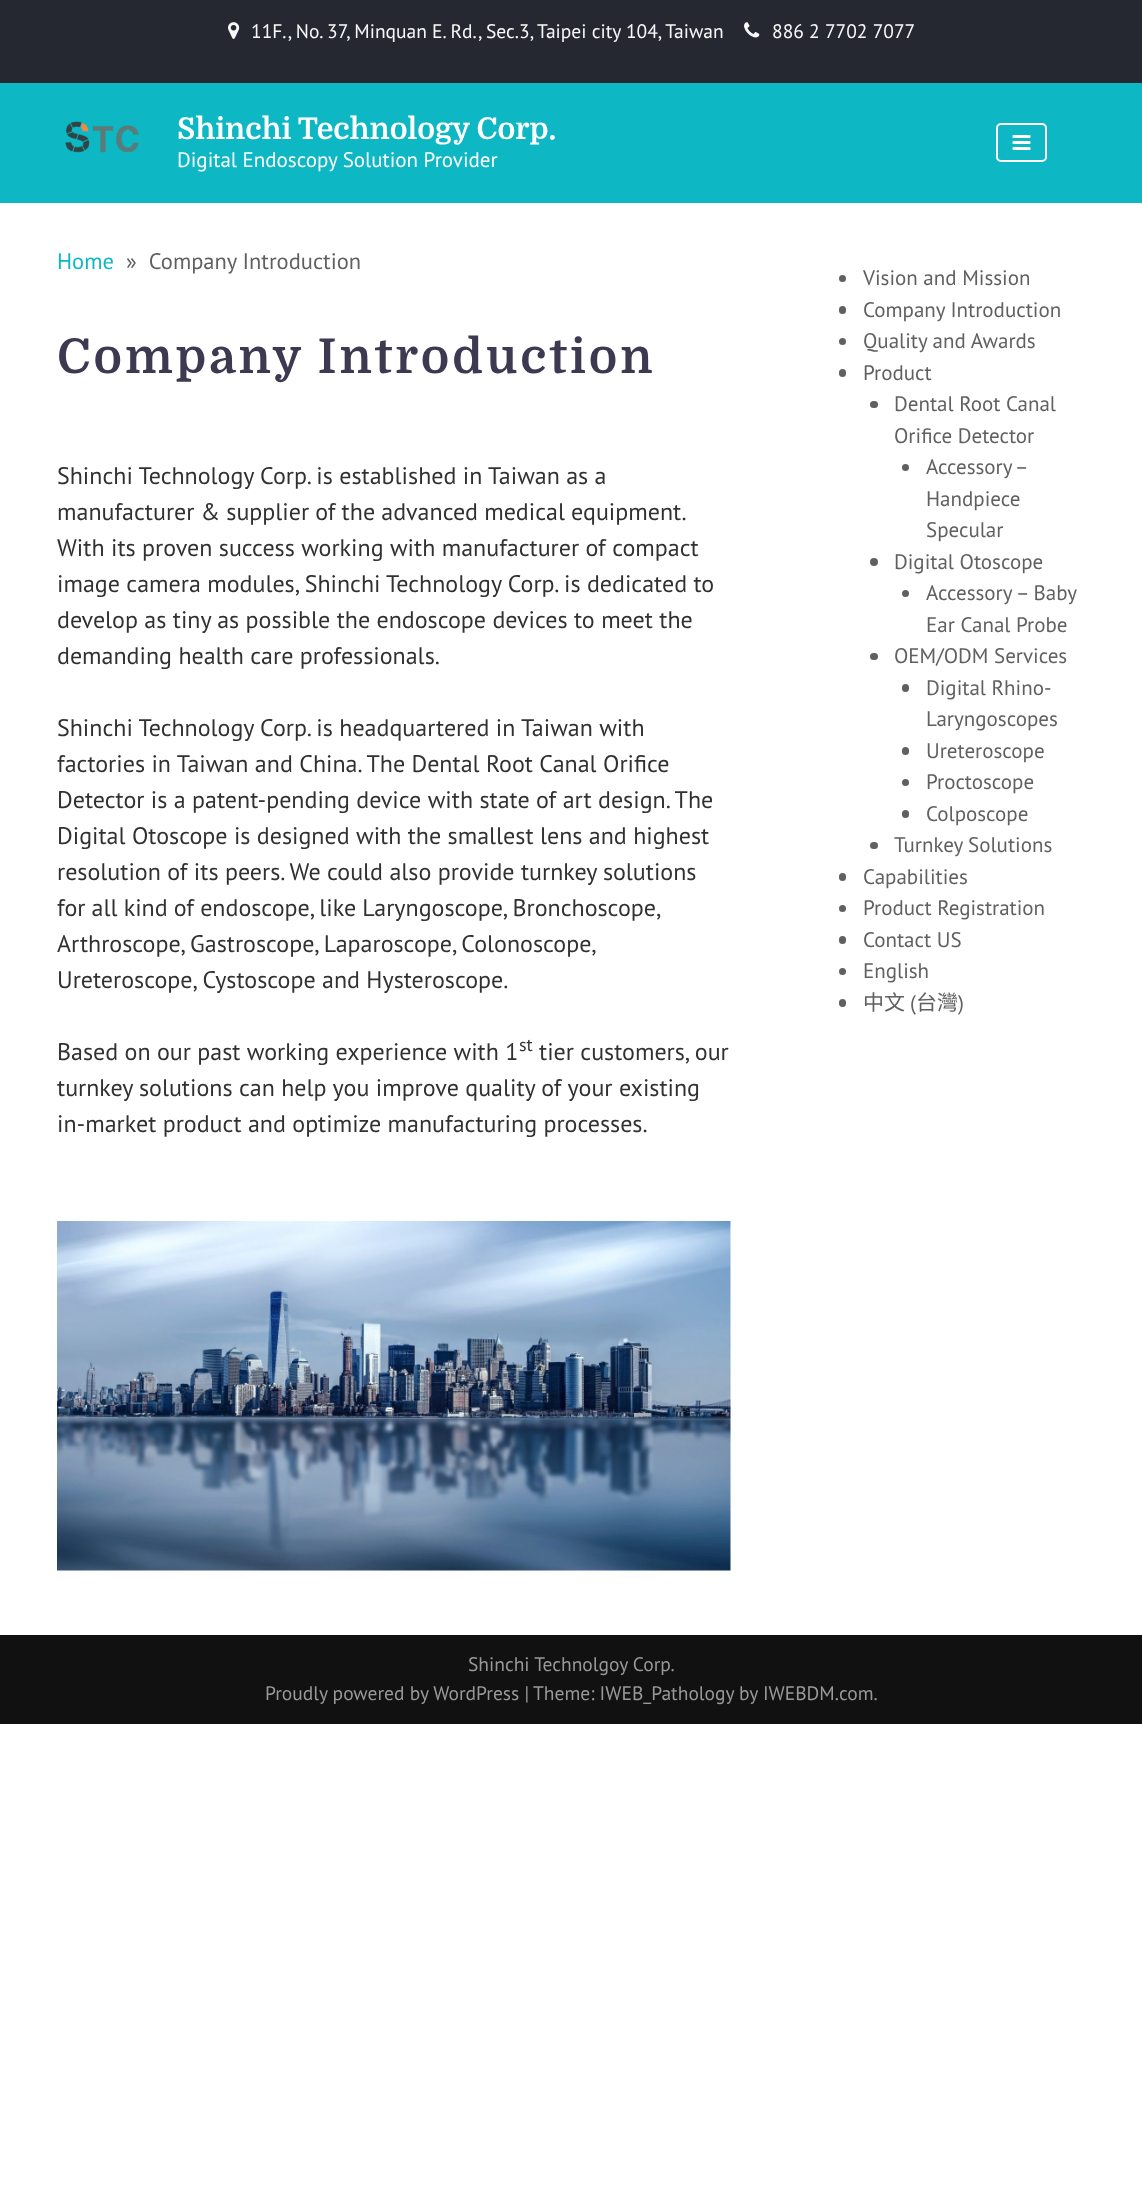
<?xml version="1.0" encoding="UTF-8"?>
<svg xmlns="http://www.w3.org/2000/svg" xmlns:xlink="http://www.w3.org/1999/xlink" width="1142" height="2210">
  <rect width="100%" height="100%" fill="#ffffff" />
  <rect width="1142" height="83" fill="#252831" />
  <image x="228" y="22" width="12" height="17" xlink:href="image1.png" />
  <image x="744" y="22" width="16" height="16" xlink:href="image2.png" />
  <rect y="83" width="1142" height="120" fill="#0db7c4" />
  <image x="65" y="121" width="74" height="32" xlink:href="image3.png" />
  <rect x="997" y="124" width="49" height="37" rx="4" fill="none" stroke="#ffffff" stroke-width="2" />
  <image x="1012" y="135" width="19" height="15" xlink:href="image4.png" />
  <image x="57" y="1221" width="674" height="350" xlink:href="image5.png" />
  <circle cx="842.5" cy="278.5" r="3.5" fill="#606060" />
  <rect x="839" y="306" width="7" height="8" rx="3.5" fill="#606060" />
  <circle cx="842.5" cy="341.5" r="3.5" fill="#606060" />
  <rect x="839" y="369" width="7" height="8" rx="3.5" fill="#606060" />
  <rect x="870" y="401" width="8" height="7" rx="3.5" fill="#606060" />
  <circle cx="905.5" cy="467.5" r="3.5" fill="#606060" />
  <circle cx="874" cy="562" r="4" fill="#606060" />
  <circle cx="905.5" cy="593.5" r="3.5" fill="#606060" />
  <rect x="870" y="653" width="8" height="7" rx="3.5" fill="#606060" />
  <rect x="902" y="684" width="7" height="8" rx="3.5" fill="#606060" />
  <rect x="902" y="747" width="7" height="8" rx="3.5" fill="#606060" />
  <circle cx="905.5" cy="782.5" r="3.5" fill="#606060" />
  <rect x="902" y="810" width="7" height="8" rx="3.5" fill="#606060" />
  <rect x="870" y="842" width="8" height="7" rx="3.5" fill="#606060" />
  <rect x="839" y="873" width="7" height="8" rx="3.5" fill="#606060" />
  <circle cx="842.5" cy="908.5" r="3.5" fill="#606060" />
  <rect x="839" y="936" width="7" height="8" rx="3.5" fill="#606060" />
  <circle cx="842.5" cy="971.5" r="3.5" fill="#606060" />
  <rect x="839" y="999" width="7" height="8" rx="3.5" fill="#606060" />
  <rect y="1635" width="1142" height="89" fill="#111111" />
  <text x="251" y="38" style="font-family: PT Sans; font-size: 19.5px; fill: #f8f8f8">11F., No. 37, Minquan E. Rd., Sec.3, Taipei city 104, Taiwan</text>
  <text x="772" y="38" style="font-family: PT Sans; font-size: 19.5px; fill: #f8f8f8">886 2 7702 7077</text>
  <text x="177" y="139" style="font-family: Domine; font-size: 30px; font-weight: bold; fill: #ffffff">Shinchi Technology Corp.</text>
  <text x="177" y="167" style="font-family: PT Sans; font-size: 21px; fill: #ffffff">Digital Endoscopy Solution Provider</text>
  <text x="57" y="269" style="font-family: PT Sans; font-size: 22.5px; fill: #0db7c4">Home</text>
  <text x="126" y="269" style="font-family: PT Sans; font-size: 22.5px; fill: #606060" xml:space="preserve">»  Company Introduction</text>
  <text x="57" y="373" style="font-family: Domine; font-size: 48px; font-weight: bold; letter-spacing: 3px; fill: #3c3950">Company Introduction</text>
  <text x="57" y="484" style="font-family: PT Sans; font-size: 24px; fill: #313131">Shinchi Technology Corp. is established in Taiwan as a</text>
  <text x="57" y="520" word-spacing="-0.25" style="font-family: PT Sans; font-size: 24px; fill: #313131">manufacturer &amp; supplier of the advanced medical equipment.</text>
  <text x="57" y="556" style="font-family: PT Sans; font-size: 24px; fill: #313131">With its proven success working with manufacturer of compact</text>
  <text x="57" y="592" style="font-family: PT Sans; font-size: 24px; fill: #313131">image camera modules, Shinchi Technology Corp. is dedicated to</text>
  <text x="57" y="628" style="font-family: PT Sans; font-size: 24px; fill: #313131">develop as tiny as possible the endoscope devices to meet the</text>
  <text x="57" y="664" style="font-family: PT Sans; font-size: 24px; fill: #313131">demanding health care professionals.</text>
  <text x="57" y="736" style="font-family: PT Sans; font-size: 24px; fill: #313131">Shinchi Technology Corp. is headquartered in Taiwan with</text>
  <text x="57" y="772" style="font-family: PT Sans; font-size: 24px; fill: #313131">factories in Taiwan and China. The Dental Root Canal Orifice</text>
  <text x="57" y="808" style="font-family: PT Sans; font-size: 24px; fill: #313131">Detector is a patent-pending device with state of art design. The</text>
  <text x="57" y="844" style="font-family: PT Sans; font-size: 24px; fill: #313131">Digital Otoscope is designed with the smallest lens and highest</text>
  <text x="57" y="880" style="font-family: PT Sans; font-size: 24px; fill: #313131">resolution of its peers. We could also provide turnkey solutions</text>
  <text x="57" y="916" word-spacing="-0.25" style="font-family: PT Sans; font-size: 24px; fill: #313131">for all kind of endoscope, like Laryngoscope, Bronchoscope,</text>
  <text x="57" y="952" word-spacing="-0.5" style="font-family: PT Sans; font-size: 24px; fill: #313131">Arthroscope, Gastroscope, Laparoscope, Colonoscope,</text>
  <text x="57" y="988" style="font-family: PT Sans; font-size: 24px; fill: #313131">Ureteroscope, Cystoscope and Hysteroscope.</text>
  <text x="57" y="1060" style="font-family: PT Sans; font-size: 24px; fill: #313131">Based on our past working experience with 1</text>
  <text x="519" y="1051" style="font-family: PT Sans; font-size: 18px; fill: #313131">st</text>
  <text x="539" y="1060" style="font-family: PT Sans; font-size: 24px; fill: #313131">tier customers, our</text>
  <text x="57" y="1096" style="font-family: PT Sans; font-size: 24px; fill: #313131">turnkey solutions can help you improve quality of your existing</text>
  <text x="57" y="1132" style="font-family: PT Sans; font-size: 24px; fill: #313131">in-market product and optimize manufacturing processes.</text>
  <text x="863" y="285" style="font-family: PT Sans; font-size: 21px; fill: #606060">Vision and Mission</text>
  <text x="863" y="317" style="font-family: PT Sans; font-size: 21px; fill: #606060">Company Introduction</text>
  <text x="863" y="348" style="font-family: PT Sans; font-size: 21px; fill: #606060">Quality and Awards</text>
  <text x="863" y="380" style="font-family: PT Sans; font-size: 21px; fill: #606060">Product</text>
  <text x="894" y="411" style="font-family: PT Sans; font-size: 21px; fill: #606060">Dental Root Canal</text>
  <text x="894" y="443" style="font-family: PT Sans; font-size: 21px; fill: #606060">Orifice Detector</text>
  <text x="926" y="474" word-spacing="-1" style="font-family: PT Sans; font-size: 21px; fill: #606060">Accessory –</text>
  <text x="926" y="506" style="font-family: PT Sans; font-size: 21px; fill: #606060">Handpiece</text>
  <text x="926" y="537" style="font-family: PT Sans; font-size: 21px; fill: #606060">Specular</text>
  <text x="894" y="569" style="font-family: PT Sans; font-size: 21px; fill: #606060">Digital Otoscope</text>
  <text x="926" y="600" style="font-family: PT Sans; font-size: 21px; fill: #606060">Accessory – Baby</text>
  <text x="926" y="632" style="font-family: PT Sans; font-size: 21px; fill: #606060">Ear Canal Probe</text>
  <text x="894" y="663" style="font-family: PT Sans; font-size: 21px; fill: #606060">OEM/ODM Services</text>
  <text x="926" y="695" style="font-family: PT Sans; font-size: 21px; fill: #606060">Digital Rhino-</text>
  <text x="926" y="726" style="font-family: PT Sans; font-size: 21px; fill: #606060">Laryngoscopes</text>
  <text x="926" y="758" style="font-family: PT Sans; font-size: 21px; fill: #606060">Ureteroscope</text>
  <text x="926" y="789" style="font-family: PT Sans; font-size: 21px; fill: #606060">Proctoscope</text>
  <text x="926" y="821" style="font-family: PT Sans; font-size: 21px; fill: #606060">Colposcope</text>
  <text x="894" y="852" style="font-family: PT Sans; font-size: 21px; fill: #606060">Turnkey Solutions</text>
  <text x="863" y="884" style="font-family: PT Sans; font-size: 21px; fill: #606060">Capabilities</text>
  <text x="863" y="915" style="font-family: PT Sans; font-size: 21px; fill: #606060">Product Registration</text>
  <text x="863" y="947" style="font-family: PT Sans; font-size: 21px; fill: #606060">Contact US</text>
  <text x="863" y="978" style="font-family: PT Sans; font-size: 21px; fill: #606060">English</text>
  <text x="863" y="1010" style="font-family: Noto Sans CJK TC; font-size: 21px; fill: #606060">中文</text>
  <text x="910" y="1010" style="font-family: PT Sans; font-size: 21px; fill: #606060">(</text>
  <text x="916" y="1010" style="font-family: Noto Sans CJK TC; font-size: 21px; fill: #606060">台灣</text>
  <text x="958" y="1010" style="font-family: PT Sans; font-size: 21px; fill: #606060">)</text>
  <text x="468" y="1671" style="font-family: PT Sans; font-size: 19.5px; fill: #999999">Shinchi Technolgoy Corp.</text>
  <text x="265" y="1700" style="font-family: PT Sans; font-size: 19.5px; fill: #999999">Proudly powered by WordPress |</text>
  <text x="533" y="1700" style="font-family: PT Sans; font-size: 19.5px; fill: #999999">Theme: IWEB_Pathology by IWEBDM.com.</text>
</svg>
